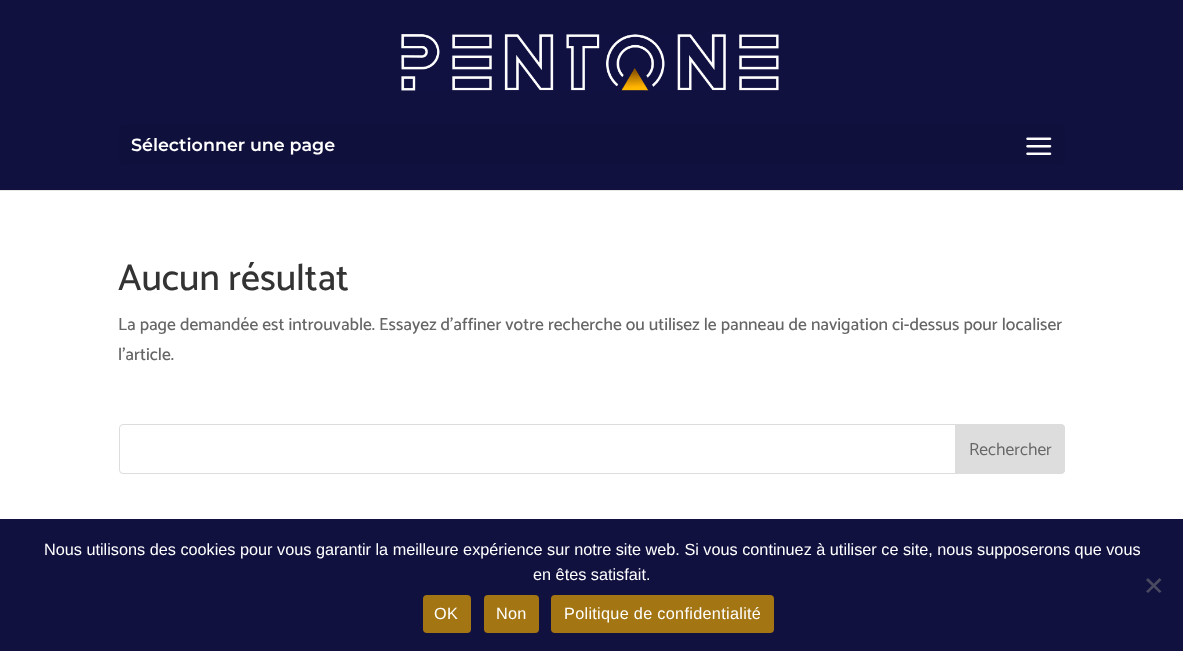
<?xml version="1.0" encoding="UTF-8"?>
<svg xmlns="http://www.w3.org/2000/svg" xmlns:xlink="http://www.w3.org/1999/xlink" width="1183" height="651">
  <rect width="100%" height="100%" fill="#ffffff" />
  <path d="M 0 190 v 1 h 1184 v -190 v 189 z" fill="#e6e6e6" />
  <rect width="1183" height="190" fill="#111140" />
  <image x="401" y="34" width="378" height="57" xlink:href="image1.png" />
  <rect x="119" y="125" width="946" height="40" rx="6" fill="#10103d" />
  <image x="1026" y="137" width="26" height="18" xlink:href="image2.png" />
  <rect x="119.5" y="424.5" width="945" height="49" rx="3.5" fill="none" stroke="#dddddd" />
  <path d="M 955.5 424.5 h 105.5 c 2 0 3.5 1.5 3.5 3.5 v 42 c 0 2 -1.5 3.5 -3.5 3.5 h -105.5 z" fill="#dddddd" stroke="#dddddd" />
  <rect y="519" width="1183" height="132" fill="#111140" />
  <path d="M 1159.5 578 l 2 2 l -13.5 13 l -2 -1.5 z" fill="#494960" />
  <path d="M 1146 580 l 2 -2 l 13.5 13.5 l -2 1.5 z" fill="#494960" />
  <rect x="423" y="595" width="48" height="38" rx="4" fill="#a37513" />
  <rect x="484" y="595" width="55" height="38" rx="4" fill="#a37513" />
  <rect x="551" y="595" width="223" height="38" rx="4" fill="#a37513" />
  <text x="131" y="151" style="font-family: Montserrat; font-size: 17.5px; font-weight: 100; fill: #ffffff">Sélectionner une page</text>
  <text x="118" y="290" style="font-family: Catamaran; font-size: 37.5px; font-weight: 100; fill: #333333">Aucun résultat</text>
  <text x="118" y="330" style="font-family: Catamaran; font-size: 17.5px; font-weight: 100; fill: #666666">La page demandée est introuvable. Essayez d'affiner votre recherche ou utilisez le panneau de navigation ci-dessus pour localiser</text>
  <text x="118" y="360" style="font-family: Catamaran; font-size: 17.5px; font-weight: 100; fill: #666666">l'article.</text>
  <text x="969" y="455" style="font-family: 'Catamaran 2'; font-size: 17.5px; font-weight: 100; fill: #666666">Rechercher</text>
  <text x="44" y="555" style="font-family: Liberation Sans; font-size: 16.25px; fill: #ffffff">Nous utilisons des cookies pour vous garantir la meilleure expérience sur notre site web. Si vous continuez à utiliser ce site, nous supposerons que vous</text>
  <text x="533" y="580" style="font-family: Liberation Sans; font-size: 16.25px; fill: #ffffff">en êtes satisfait.</text>
  <text x="434" y="619" style="font-family: Liberation Sans; font-size: 16.25px; letter-spacing: 0.3px; fill: #ffffff">OK</text>
  <text x="496" y="619" style="font-family: Liberation Sans; font-size: 16.25px; letter-spacing: 0.3px; fill: #ffffff">Non</text>
  <text x="564" y="619" style="font-family: Liberation Sans; font-size: 16.25px; letter-spacing: 0.3px; fill: #ffffff">Politique de confidentialité</text>
</svg>
